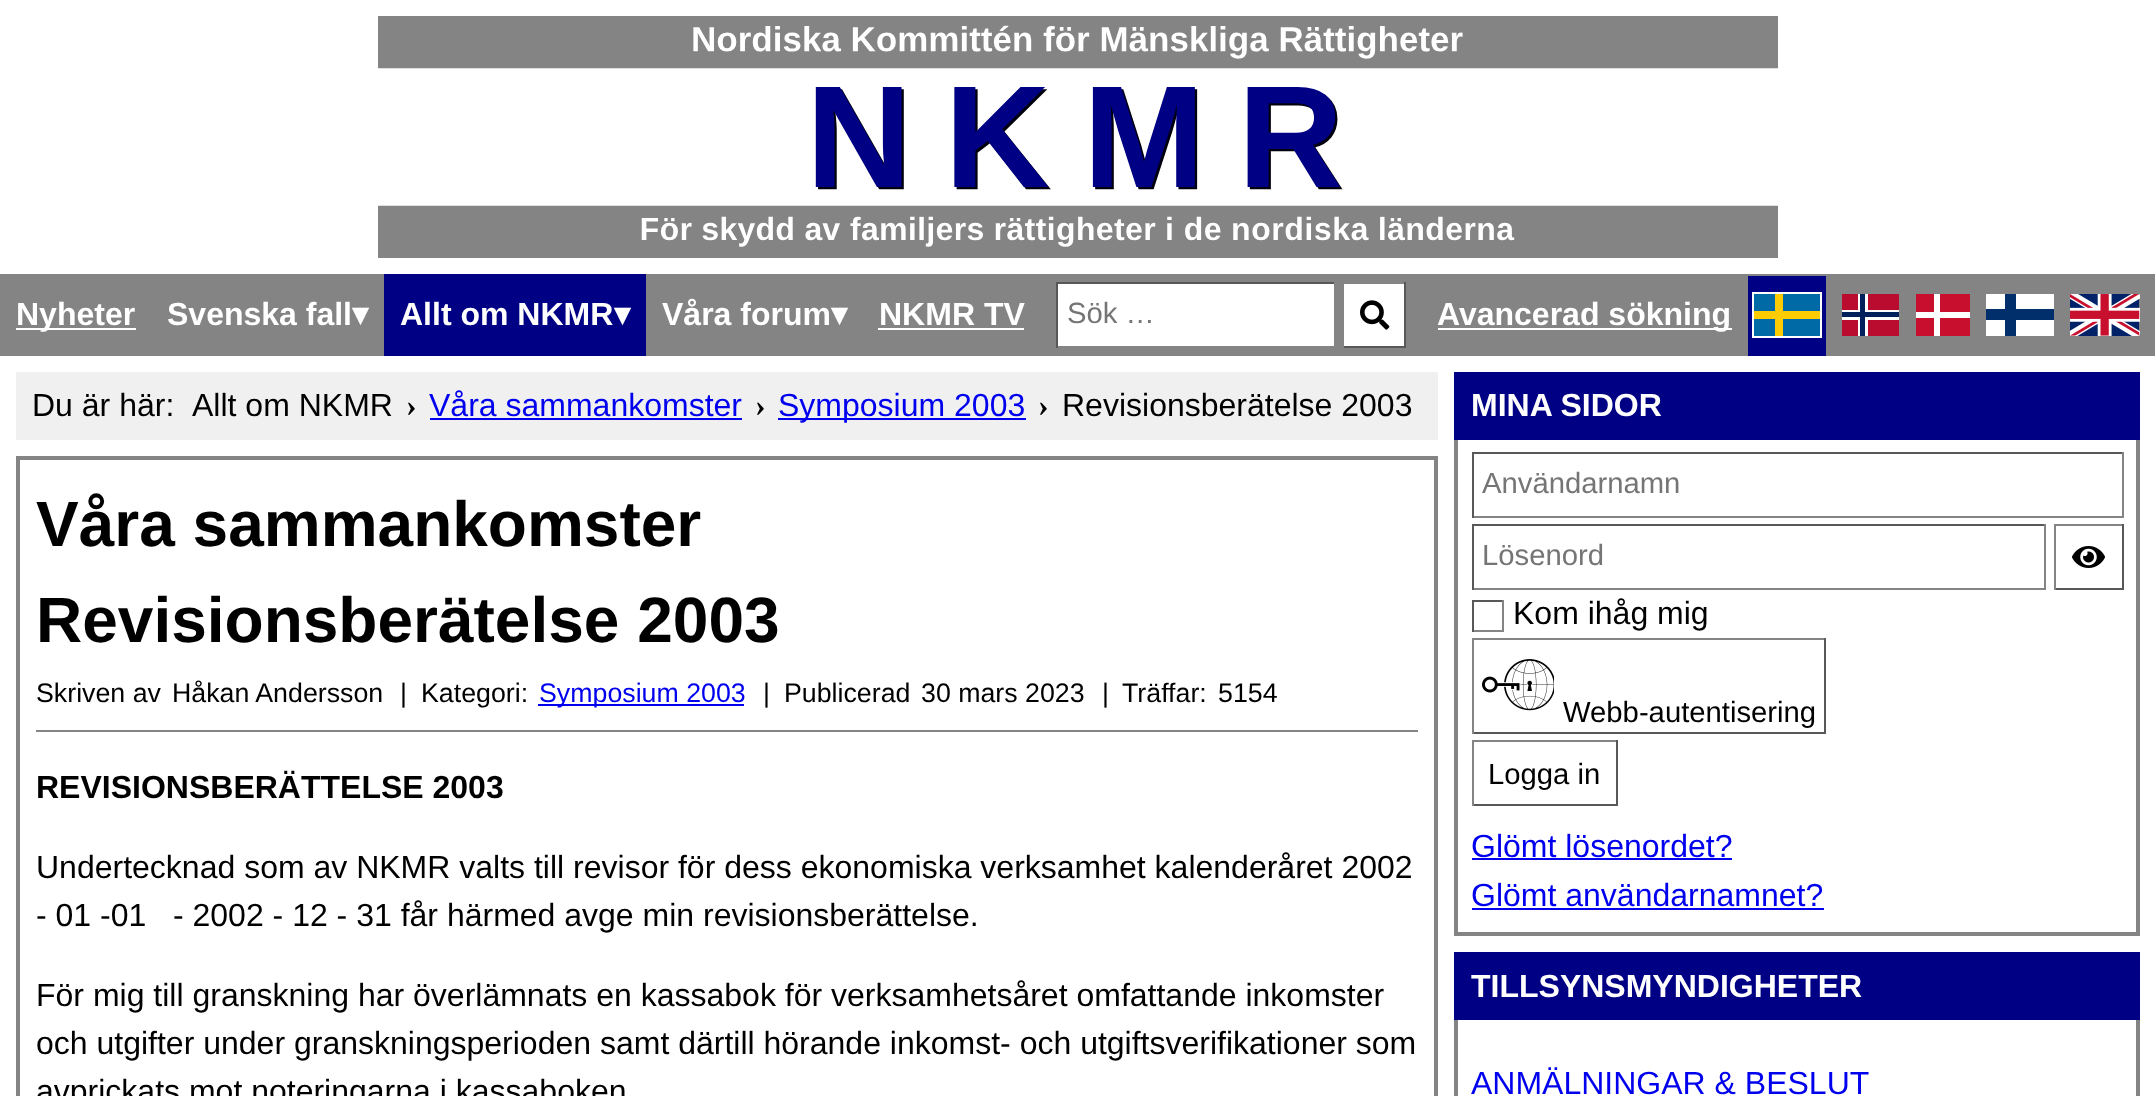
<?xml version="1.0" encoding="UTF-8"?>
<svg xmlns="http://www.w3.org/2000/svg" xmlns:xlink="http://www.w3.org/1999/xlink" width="2155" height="1096">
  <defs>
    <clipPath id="clip1"><rect x="1916" y="294" width="54" height="42" /></clipPath>
  </defs>
  <rect width="100%" height="100%" fill="#ffffff" />
  <image x="378" y="16" width="1400" height="242" xlink:href="image1.png" />
  <rect y="274" width="2155" height="82" fill="#848484" />
  <rect x="16" y="328" width="120" height="2" fill="#ffffff" />
  <rect x="384" y="274" width="262" height="82" fill="#000084" />
  <rect x="878" y="328" width="146" height="2" fill="#ffffff" />
  <rect x="1058" y="284" width="276" height="62" fill="#ffffff" />
  <rect x="1056" y="282" width="280" height="2" fill="#585858" />
  <rect x="1334" y="282" width="2" height="2" fill="#848484" />
  <rect x="1056" y="282" width="2" height="66" fill="#585858" />
  <rect x="1344" y="284" width="60" height="62" fill="#ffffff" />
  <rect x="1404" y="282" width="2" height="66" fill="#585858" />
  <rect x="1342" y="346" width="64" height="2" fill="#585858" />
  <rect x="1342" y="346" width="2" height="2" fill="#848484" />
  <image x="1360" y="300" width="30" height="30" xlink:href="image2.png" />
  <rect x="1438" y="328" width="294" height="2" fill="#ffffff" />
  <rect x="1748" y="276" width="78" height="80" fill="#000084" />
  <rect x="1754" y="294" width="66" height="42" fill="#006aa7" />
  <rect x="1775" y="294" width="8" height="42" fill="#fecc00" />
  <rect x="1754" y="311" width="66" height="8" fill="#fecc00" />
  <rect x="1753" y="293" width="68" height="44" fill="none" stroke="#ffffff" stroke-width="2" />
  <rect x="1842" y="294" width="57" height="42" fill="#ba0c2f" />
  <rect x="1858" y="294" width="10" height="42" fill="#ffffff" />
  <rect x="1842" y="310" width="57" height="10" fill="#ffffff" />
  <rect x="1860" y="294" width="5" height="42" fill="#00205b" />
  <rect x="1842" y="312" width="57" height="5" fill="#00205b" />
  <rect x="1916" y="294" width="54" height="42" fill="#c8102e" />
  <g clip-path="url(#clip1)">
    <path d="M 1916 312 h 18 v -18 h 6 v 18 h 31 v 6 h -31 v 18 h -6 v -18 h -18 z" fill="#ffffff" />
  </g>
  <rect x="1986" y="294" width="68" height="42" fill="#ffffff" />
  <rect x="1986" y="309" width="68" height="11" fill="#002f6c" />
  <rect x="2005" y="294" width="11" height="42" fill="#002f6c" />
  <image x="2070" y="294" width="70" height="42" xlink:href="image3.png" />
  <rect x="16" y="372" width="1422" height="68" fill="#f0f0f0" />
  <rect x="430" y="418" width="312" height="2" fill="#0000ee" />
  <rect x="778" y="418" width="248" height="2" fill="#0000ee" />
  <rect x="1454" y="372" width="686" height="68" fill="#000084" />
  <rect x="2136" y="440" width="4" height="496" fill="#848484" />
  <rect x="1454" y="932" width="686" height="4" fill="#848484" />
  <rect x="1454" y="440" width="4" height="496" fill="#848484" />
  <rect x="1472" y="452" width="652" height="2" fill="#585858" />
  <rect x="2122" y="452" width="2" height="66" fill="#848484" />
  <rect x="1472" y="516" width="652" height="2" fill="#848484" />
  <rect x="1472" y="452" width="2" height="66" fill="#585858" />
  <rect x="1472" y="524" width="574" height="2" fill="#585858" />
  <rect x="2044" y="524" width="2" height="66" fill="#848484" />
  <rect x="1472" y="588" width="574" height="2" fill="#848484" />
  <rect x="1472" y="524" width="2" height="66" fill="#585858" />
  <rect x="2054" y="524" width="70" height="2" fill="#848484" />
  <rect x="2122" y="524" width="2" height="66" fill="#585858" />
  <rect x="2054" y="588" width="70" height="2" fill="#585858" />
  <rect x="2054" y="524" width="2" height="66" fill="#848484" />
  <image x="2072" y="546" width="33" height="22" xlink:href="image4.png" />
  <rect x="1472" y="600" width="32" height="2" fill="#585858" />
  <rect x="1502" y="600" width="2" height="32" fill="#848484" />
  <rect x="1472" y="630" width="32" height="2" fill="#848484" />
  <rect x="1472" y="600" width="2" height="32" fill="#585858" />
  <rect x="1472" y="638" width="354" height="2" fill="#848484" />
  <rect x="1824" y="638" width="2" height="96" fill="#585858" />
  <rect x="1472" y="732" width="354" height="2" fill="#585858" />
  <rect x="1472" y="638" width="2" height="96" fill="#848484" />
  <image x="1482" y="659" width="72" height="52" xlink:href="image5.png" />
  <rect x="1472" y="740" width="146" height="2" fill="#848484" />
  <rect x="1616" y="740" width="2" height="66" fill="#585858" />
  <rect x="1472" y="804" width="146" height="2" fill="#585858" />
  <rect x="1472" y="740" width="2" height="66" fill="#848484" />
  <rect x="1472" y="858" width="260" height="2" fill="#0000ee" />
  <rect x="1472" y="908" width="352" height="2" fill="#0000ee" />
  <rect x="1454" y="952" width="686" height="68" fill="#000084" />
  <rect x="2136" y="1020" width="4" height="76" fill="#848484" />
  <rect x="1454" y="1020" width="4" height="76" fill="#848484" />
  <rect x="18" y="458" width="1418" height="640" fill="none" stroke="#848484" stroke-width="4" />
  <rect x="36" y="730" width="1382" height="2" fill="#848484" />
  <rect x="538" y="704" width="206" height="2" fill="#0000ee" />
  <text x="16" y="325" style="font-family: Liberation Sans; font-size: 32px; font-weight: bold; fill: #ffffff">Nyheter</text>
  <text x="167" y="325" style="font-family: Liberation Sans; font-size: 32px; font-weight: bold; fill: #ffffff">Svenska fall</text>
  <text x="352" y="325" style="font-family: DejaVu Sans; font-size: 32px; font-weight: bold; fill: #ffffff">▾</text>
  <text x="400" y="325" style="font-family: Liberation Sans; font-size: 32px; font-weight: bold; fill: #ffffff">Allt om NKMR</text>
  <text x="614" y="325" style="font-family: DejaVu Sans; font-size: 32px; font-weight: bold; fill: #ffffff">▾</text>
  <text x="662" y="325" style="font-family: Liberation Sans; font-size: 32px; font-weight: bold; fill: #ffffff">Våra forum</text>
  <text x="831" y="325" style="font-family: DejaVu Sans; font-size: 32px; font-weight: bold; fill: #ffffff">▾</text>
  <text x="879" y="325" style="font-family: Liberation Sans; font-size: 32px; font-weight: bold; fill: #ffffff">NKMR TV</text>
  <text x="1067" y="323" style="font-family: Liberation Sans; font-size: 29.25px; fill: #757575">Sök …</text>
  <text x="1437" y="325" style="font-family: Liberation Sans; font-size: 32px; font-weight: bold; fill: #ffffff">Avancerad sökning</text>
  <text x="32" y="416" style="font-family: Liberation Sans; font-size: 32px; fill: #000000">Du är här:</text>
  <text x="192" y="416" style="font-family: Liberation Sans; font-size: 32px; fill: #000000">Allt om NKMR</text>
  <text x="406" y="416" style="font-family: Liberation Serif; font-size: 32px; font-weight: bold; fill: #000000">›</text>
  <text x="429" y="416" style="font-family: Liberation Sans; font-size: 32px; fill: #0000ee">Våra sammankomster</text>
  <text x="755" y="416" style="font-family: Liberation Serif; font-size: 32px; font-weight: bold; fill: #000000">›</text>
  <text x="778" y="416" style="font-family: Liberation Sans; font-size: 32px; fill: #0000ee">Symposium 2003</text>
  <text x="1038" y="416" style="font-family: Liberation Serif; font-size: 32px; font-weight: bold; fill: #000000">›</text>
  <text x="1062" y="416" style="font-family: Liberation Sans; font-size: 32px; fill: #000000">Revisionsberätelse 2003</text>
  <text x="1471" y="416" style="font-family: Liberation Sans; font-size: 32px; font-weight: bold; fill: #ffffff">MINA SIDOR</text>
  <text x="1482" y="493" style="font-family: Liberation Sans; font-size: 29.25px; fill: #757575">Användarnamn</text>
  <text x="1482" y="565" style="font-family: Liberation Sans; font-size: 29.25px; fill: #757575">Lösenord</text>
  <text x="1513" y="624" style="font-family: Liberation Sans; font-size: 32px; fill: #000000">Kom ihåg mig</text>
  <text x="1563" y="722" style="font-family: Liberation Sans; font-size: 29.25px; fill: #000000">Webb-autentisering</text>
  <text x="1488" y="784" style="font-family: Liberation Sans; font-size: 29.25px; fill: #000000">Logga in</text>
  <text x="1471" y="857" style="font-family: Liberation Sans; font-size: 32px; fill: #0000ee">Glömt lösenordet?</text>
  <text x="1471" y="906" style="font-family: Liberation Sans; font-size: 32px; fill: #0000ee">Glömt användarnamnet?</text>
  <text x="1471" y="997" style="font-family: Liberation Sans; font-size: 32px; font-weight: bold; fill: #ffffff">TILLSYNSMYNDIGHETER</text>
  <text x="1471" y="1094" style="font-family: Liberation Sans; font-size: 32px; fill: #0000ee">ANMÄLNINGAR &amp; BESLUT</text>
  <text x="36" y="546" style="font-family: Liberation Sans; font-size: 64px; font-weight: bold; fill: #000000">Våra sammankomster</text>
  <text x="36" y="642" style="font-family: Liberation Sans; font-size: 64px; font-weight: bold; fill: #000000">Revisionsberätelse 2003</text>
  <text x="36" y="702" style="font-family: Liberation Sans; font-size: 26.75px; fill: #000000">Skriven av</text>
  <text x="172" y="702" style="font-family: Liberation Sans; font-size: 26.75px; fill: #000000">Håkan Andersson</text>
  <text x="400" y="702" style="font-family: Liberation Sans; font-size: 26.75px; fill: #000000">|</text>
  <text x="421" y="702" style="font-family: Liberation Sans; font-size: 26.75px; fill: #000000">Kategori:</text>
  <text x="539" y="702" style="font-family: Liberation Sans; font-size: 26.75px; fill: #0000ee">Symposium 2003</text>
  <text x="763" y="702" style="font-family: Liberation Sans; font-size: 26.75px; fill: #000000">|</text>
  <text x="784" y="702" style="font-family: Liberation Sans; font-size: 26.75px; fill: #000000">Publicerad</text>
  <text x="921" y="702" style="font-family: Liberation Sans; font-size: 26.75px; fill: #000000">30 mars 2023</text>
  <text x="1102" y="702" style="font-family: Liberation Sans; font-size: 26.75px; fill: #000000">|</text>
  <text x="1122" y="702" style="font-family: Liberation Sans; font-size: 26.75px; fill: #000000">Träffar:</text>
  <text x="1218" y="702" style="font-family: Liberation Sans; font-size: 26.75px; fill: #000000">5154</text>
  <text x="36" y="798" style="font-family: Liberation Sans; font-size: 32px; font-weight: bold; fill: #000000">REVISIONSBERÄTTELSE 2003</text>
  <text x="36" y="878" style="font-family: Liberation Sans; font-size: 32px; fill: #000000">Undertecknad som av NKMR valts till revisor för dess ekonomiska verksamhet kalenderåret 2002</text>
  <text x="36" y="926" style="font-family: Liberation Sans; font-size: 32px; fill: #000000" xml:space="preserve">- 01 -01   - 2002 - 12 - 31 får härmed avge min revisionsberättelse.</text>
  <text x="36" y="1006" style="font-family: Liberation Sans; font-size: 32px; fill: #000000">För mig till granskning har överlämnats en kassabok för verksamhetsåret omfattande inkomster</text>
  <text x="36" y="1054" style="font-family: Liberation Sans; font-size: 32px; fill: #000000">och utgifter under granskningsperioden samt därtill hörande inkomst- och utgiftsverifikationer som</text>
  <text x="36" y="1102" style="font-family: Liberation Sans; font-size: 32px; fill: #000000">avprickats mot noteringarna i kassaboken</text>
</svg>
